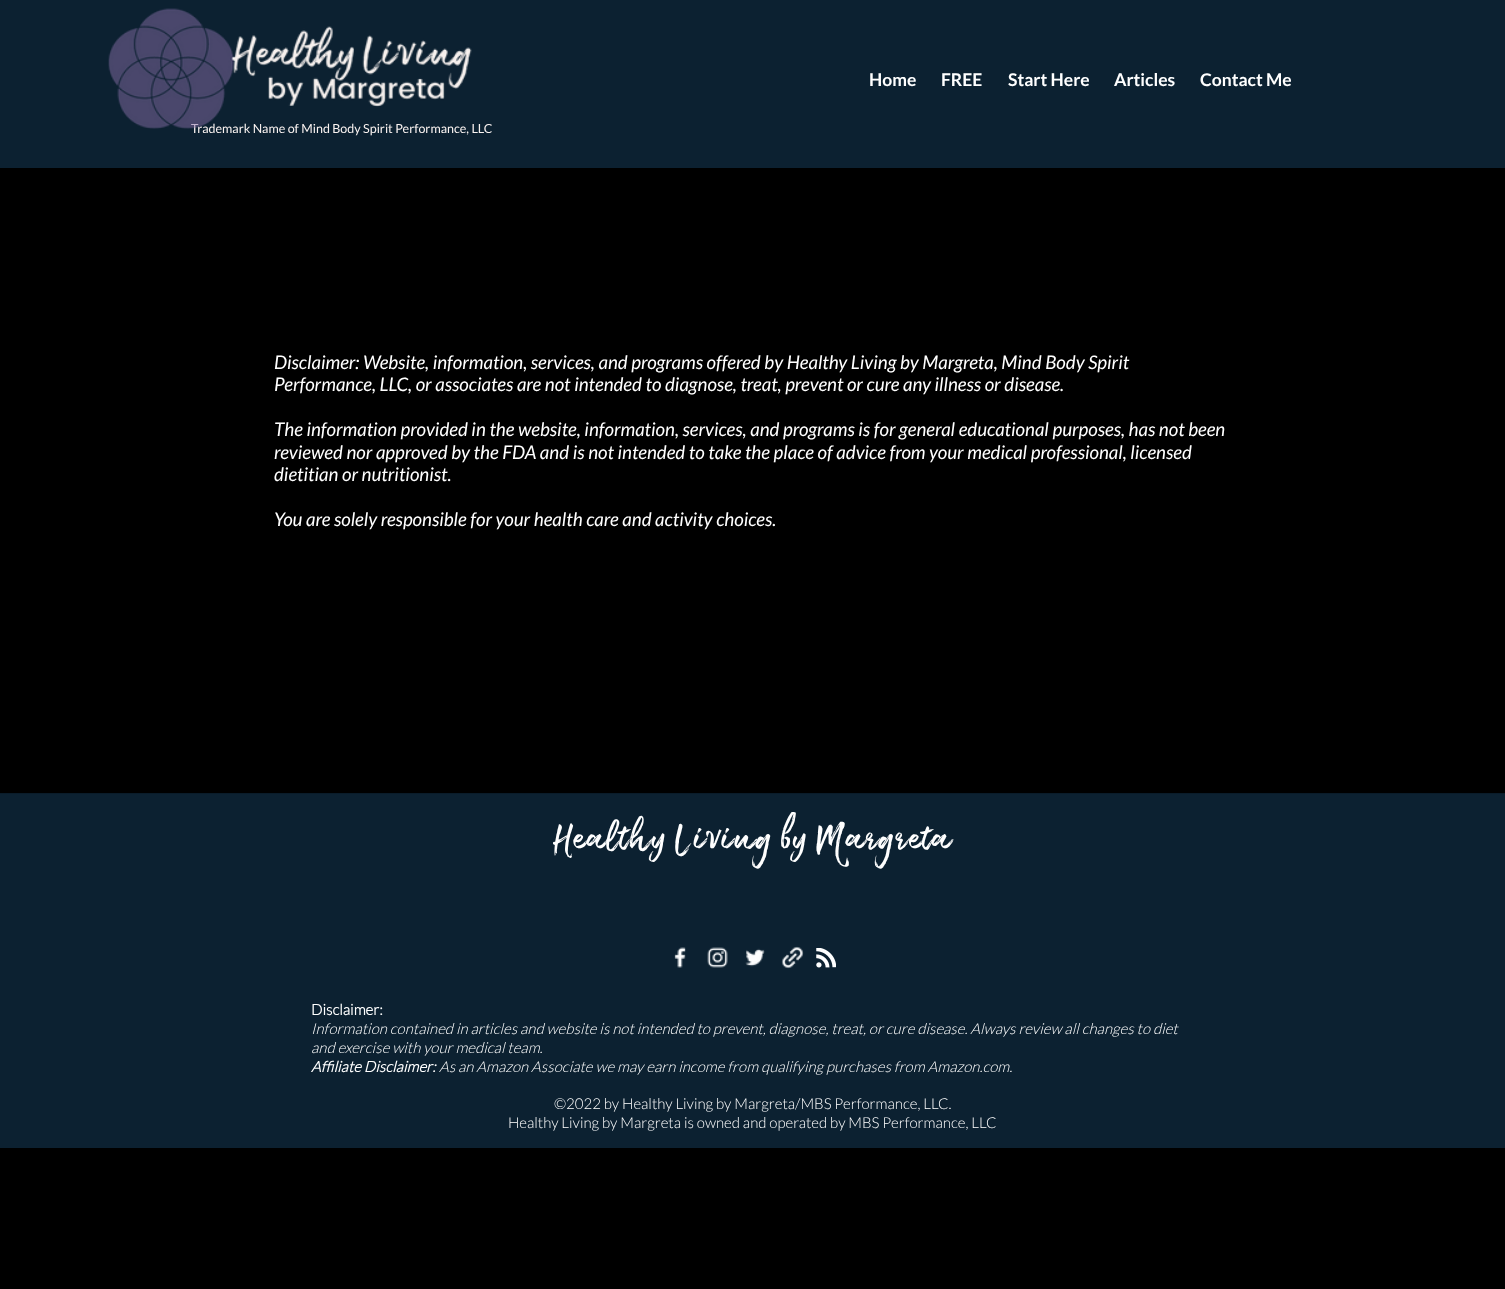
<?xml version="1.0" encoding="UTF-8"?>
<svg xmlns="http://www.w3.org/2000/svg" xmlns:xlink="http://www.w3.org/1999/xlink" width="1505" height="1289">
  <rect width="100%" height="100%" fill="#000000" />
  <rect width="1505" height="168" fill="#0c2131" />
  <rect y="794" width="1505" height="354" fill="#0c2131" />
  <rect y="793" width="1505" height="1" fill="#0a1c2a" />
  <image x="674" y="947" width="12" height="21" xlink:href="image2.png" />
  <image x="707" y="947" width="21" height="21" xlink:href="image3.png" />
  <image x="745" y="948" width="20" height="19" xlink:href="image4.png" />
  <image x="781" y="946" width="23" height="23" xlink:href="image5.png" />
  <image x="816" y="948" width="20" height="20" xlink:href="image6.png" />
  <text x="869" y="86" style="font-family: 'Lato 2'; font-size: 17.5px; font-weight: bold; fill: #ffffff">Home</text>
  <text x="941" y="86" style="font-family: 'Lato 2'; font-size: 17.5px; font-weight: bold; fill: #ffffff">FREE</text>
  <text x="1008" y="86" style="font-family: 'Lato 2'; font-size: 17.5px; font-weight: bold; fill: #ffffff">Start Here</text>
  <text x="1114" y="86" style="font-family: 'Lato 2'; font-size: 17.5px; font-weight: bold; fill: #ffffff">Articles</text>
  <text x="1200" y="86" style="font-family: 'Lato 2'; font-size: 17.5px; font-weight: bold; fill: #ffffff">Contact Me</text>
  <text x="191" y="133" style="font-family: Lato; font-size: 12.5px; fill: #faf3f1">Trademark Name of Mind Body Spirit Performance, LLC</text>
  <image x="108" y="8" width="364" height="121" xlink:href="image1.png" />
  <text x="274" y="369" style="font-family: Lato; font-size: 18.75px; font-style: italic; fill: #ffffff">Disclaimer: Website, information, services, and programs offered by Healthy Living by Margreta, Mind Body Spirit</text>
  <text x="274" y="391" style="font-family: Lato; font-size: 18.75px; font-style: italic; fill: #ffffff">Performance, LLC, or associates are not intended to diagnose, treat, prevent or cure any illness or disease.</text>
  <text x="274" y="436" style="font-family: Lato; font-size: 18.75px; font-style: italic; fill: #ffffff">The information provided in the website, information, services, and programs is for general educational purposes, has not been</text>
  <text x="274" y="459" style="font-family: Lato; font-size: 18.75px; font-style: italic; fill: #ffffff">reviewed nor approved by the FDA and is not intended to take the place of advice from your medical professional, licensed</text>
  <text x="274" y="481" style="font-family: Lato; font-size: 18.75px; font-style: italic; fill: #ffffff">dietitian or nutritionist.</text>
  <text x="274" y="526" style="font-family: Lato; font-size: 18.75px; font-style: italic; fill: #ffffff">You are solely responsible for your health care and activity choices.</text>
  <text x="553" y="846" style="font-family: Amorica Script; font-size: 43.75px; letter-spacing: 1.3px; fill: #ffffff">Healthy Living by Margreta</text>
  <text x="311" y="1015" style="font-family: Lato; font-size: 15px; font-weight: bold; fill: #ffffff">Disclaimer:</text>
  <text x="311" y="1034" style="font-family: Lato; font-size: 15px; font-weight: 300; font-style: italic; fill: #ffffff">Information contained in articles and website is not intended to prevent, diagnose, treat, or cure disease. Always review all changes to diet</text>
  <text x="311" y="1053" style="font-family: Lato; font-size: 15px; font-weight: 300; font-style: italic; fill: #ffffff">and exercise with your medical team.</text>
  <text x="311" y="1072" style="font-family: Lato; font-size: 15px; font-weight: bold; font-style: italic; fill: #ffffff">Affiliate Disclaimer:</text>
  <text x="439" y="1072" style="font-family: Lato; font-size: 15px; font-weight: 300; font-style: italic; fill: #ffffff">As an Amazon Associate we may earn income from qualifying purchases from Amazon.com.</text>
  <text x="554" y="1109" style="font-family: Lato; font-size: 15px; font-weight: 300; fill: #ffffff">©2022 by Healthy Living by Margreta/MBS Performance, LLC.</text>
  <text x="508" y="1128" style="font-family: Lato; font-size: 15px; font-weight: 300; fill: #ffffff">Healthy Living by Margreta is owned and operated by MBS Performance, LLC</text>
</svg>
